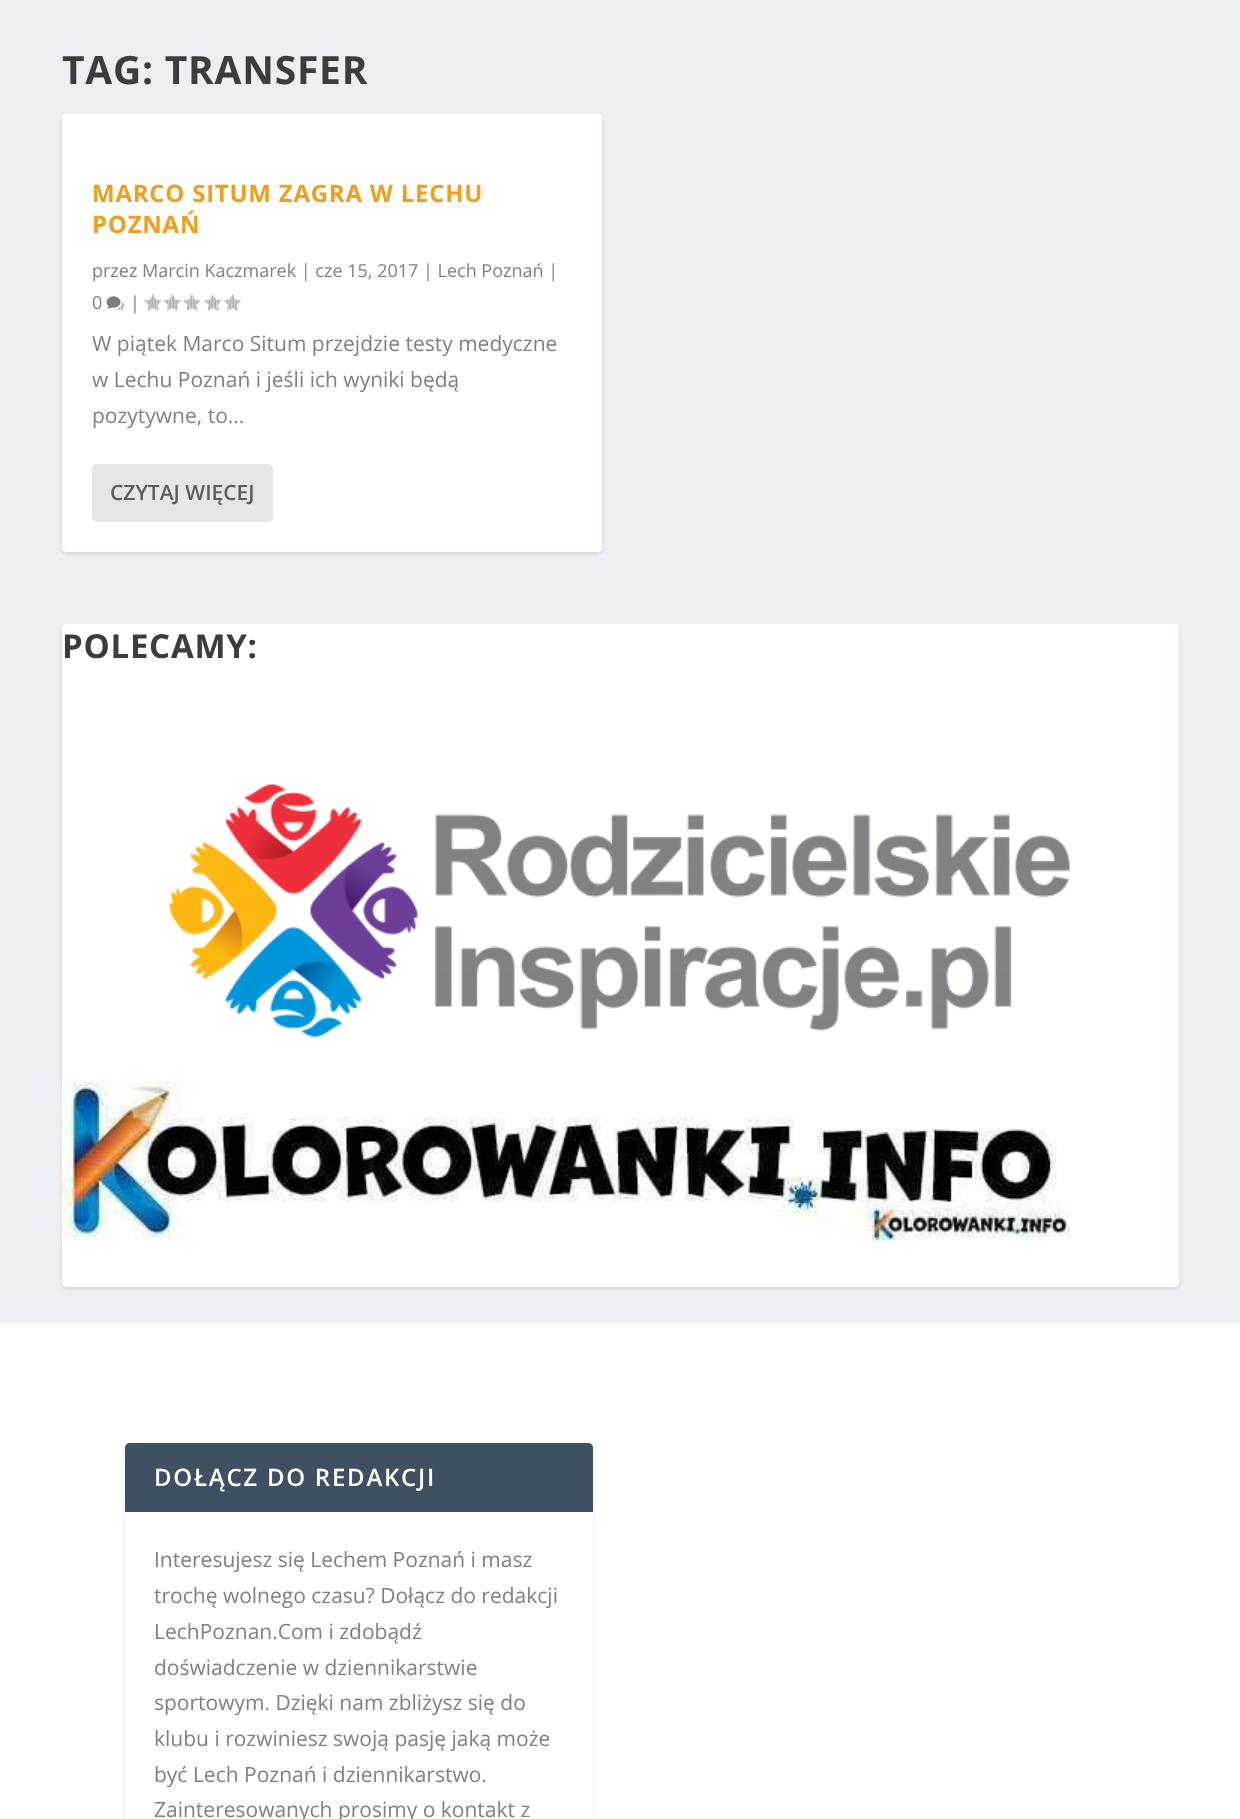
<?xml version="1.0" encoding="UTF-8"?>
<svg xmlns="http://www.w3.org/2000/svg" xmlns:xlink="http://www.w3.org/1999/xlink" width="1240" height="1819">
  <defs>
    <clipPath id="clip1"><path d="M 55 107 h 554 v 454 h -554 z m 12 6 h 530 c 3 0 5 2 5 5 v 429 c 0 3 -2 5 -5 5 h -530 c -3 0 -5 -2 -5 -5 v -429 c 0 -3 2 -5 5 -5 z" clip-rule="evenodd" /></clipPath>
  </defs>
  <rect width="100%" height="100%" fill="#ecf0f5" />
  <g clip-path="url(#clip1)">
    <rect x="62" y="114" width="540" height="440" rx="5" fill="#000000" fill-opacity="0.1" filter="blur(2px)" />
  </g>
  <rect x="62" y="113" width="540" height="439" rx="5" fill="#ffffff" />
  <image x="106" y="296" width="19" height="14" xlink:href="image1.png" />
  <image x="144" y="294" width="18" height="17" xlink:href="image2.png" />
  <image x="163" y="294" width="19" height="17" xlink:href="image3.png" />
  <image x="183" y="294" width="18" height="17" xlink:href="image2.png" />
  <image x="204" y="294" width="18" height="17" xlink:href="image2.png" />
  <image x="223" y="294" width="19" height="17" xlink:href="image3.png" />
  <rect x="92" y="464" width="181" height="58" rx="5" fill="#e6e6e6" />
  <rect x="62" y="626" width="1117" height="663" rx="5" fill="#000000" fill-opacity="0.1" filter="blur(2px)" />
  <rect x="62" y="624" width="1117" height="663" rx="5" fill="#ffffff" />
  <image x="169" y="784" width="901" height="253" xlink:href="image4.png" />
  <image x="61" y="1081" width="1009" height="160" xlink:href="image5.png" />
  <rect y="1323" width="1240" height="496" fill="#ffffff" />
  <rect x="125" y="1445" width="468" height="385" rx="5" fill="#000000" fill-opacity="0.1" filter="blur(2px)" />
  <rect x="125" y="1443" width="468" height="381" rx="5" fill="#ffffff" />
  <path d="M 130 1443 h 458 c 3 0 5 2 5 5 v 64 h -468 v -64 c 0 -3 2 -5 5 -5 z" fill="#3e5062" />
  <text x="62" y="84" style="font-family: Open Sans; font-size: 39px; font-weight: bold; letter-spacing: 0.75px; fill: #3b3c3d">TAG: TRANSFER</text>
  <text x="92" y="202" style="font-family: Open Sans; font-size: 24px; font-weight: bold; letter-spacing: 0.75px; fill: #f29e1a">MARCO SITUM ZAGRA W LECHU</text>
  <text x="92" y="233" style="font-family: Open Sans; font-size: 24px; font-weight: bold; letter-spacing: 0.75px; fill: #f29e1a">POZNAŃ</text>
  <text x="92" y="277" style="font-family: Open Sans; font-size: 18px; fill: #808080">przez Marcin Kaczmarek | cze 15, 2017 | Lech Poznań |</text>
  <text x="92" y="309" style="font-family: Open Sans; font-size: 18px; fill: #808080">0</text>
  <text x="130" y="309" style="font-family: Open Sans; font-size: 18px; fill: #808080">|</text>
  <text x="92" y="351" style="font-family: Open Sans; font-size: 21px; fill: #808080">W piątek Marco Situm przejdzie testy medyczne</text>
  <text x="92" y="387" style="font-family: Open Sans; font-size: 21px; fill: #808080">w Lechu Poznań i jeśli ich wyniki będą</text>
  <text x="92" y="423" style="font-family: Open Sans; font-size: 21px; fill: #808080">pozytywne, to...</text>
  <text x="110" y="500" style="font-family: Open Sans; font-size: 21px; font-weight: 600; fill: #5c5c5c">CZYTAJ WIĘCEJ</text>
  <text x="62" y="658" style="font-family: Open Sans; font-size: 33px; font-weight: bold; letter-spacing: 0.75px; fill: #3b3c3d">POLECAMY:</text>
  <text x="154" y="1486" style="font-family: Open Sans; font-size: 24px; font-weight: 600; letter-spacing: 1.75px; fill: #ffffff">DOŁĄCZ DO REDAKCJI</text>
  <text x="154" y="1567" style="font-family: Open Sans; font-size: 21px; fill: #808080">Interesujesz się Lechem Poznań i masz</text>
  <text x="154" y="1603" style="font-family: Open Sans; font-size: 21px; fill: #808080">trochę wolnego czasu? Dołącz do redakcji</text>
  <text x="154" y="1639" style="font-family: Open Sans; font-size: 21px; fill: #808080">LechPoznan.Com i zdobądź</text>
  <text x="154" y="1675" style="font-family: Open Sans; font-size: 21px; fill: #808080">doświadczenie w dziennikarstwie</text>
  <text x="154" y="1710" style="font-family: Open Sans; font-size: 21px; fill: #808080">sportowym. Dzięki nam zbliżysz się do</text>
  <text x="154" y="1746" style="font-family: Open Sans; font-size: 21px; fill: #808080">klubu i rozwiniesz swoją pasję jaką może</text>
  <text x="154" y="1782" style="font-family: Open Sans; font-size: 21px; fill: #808080">być Lech Poznań i dziennikarstwo.</text>
  <text x="154" y="1817" style="font-family: Open Sans; font-size: 21px; fill: #808080">Zainteresowanych prosimy o kontakt z</text>
</svg>
